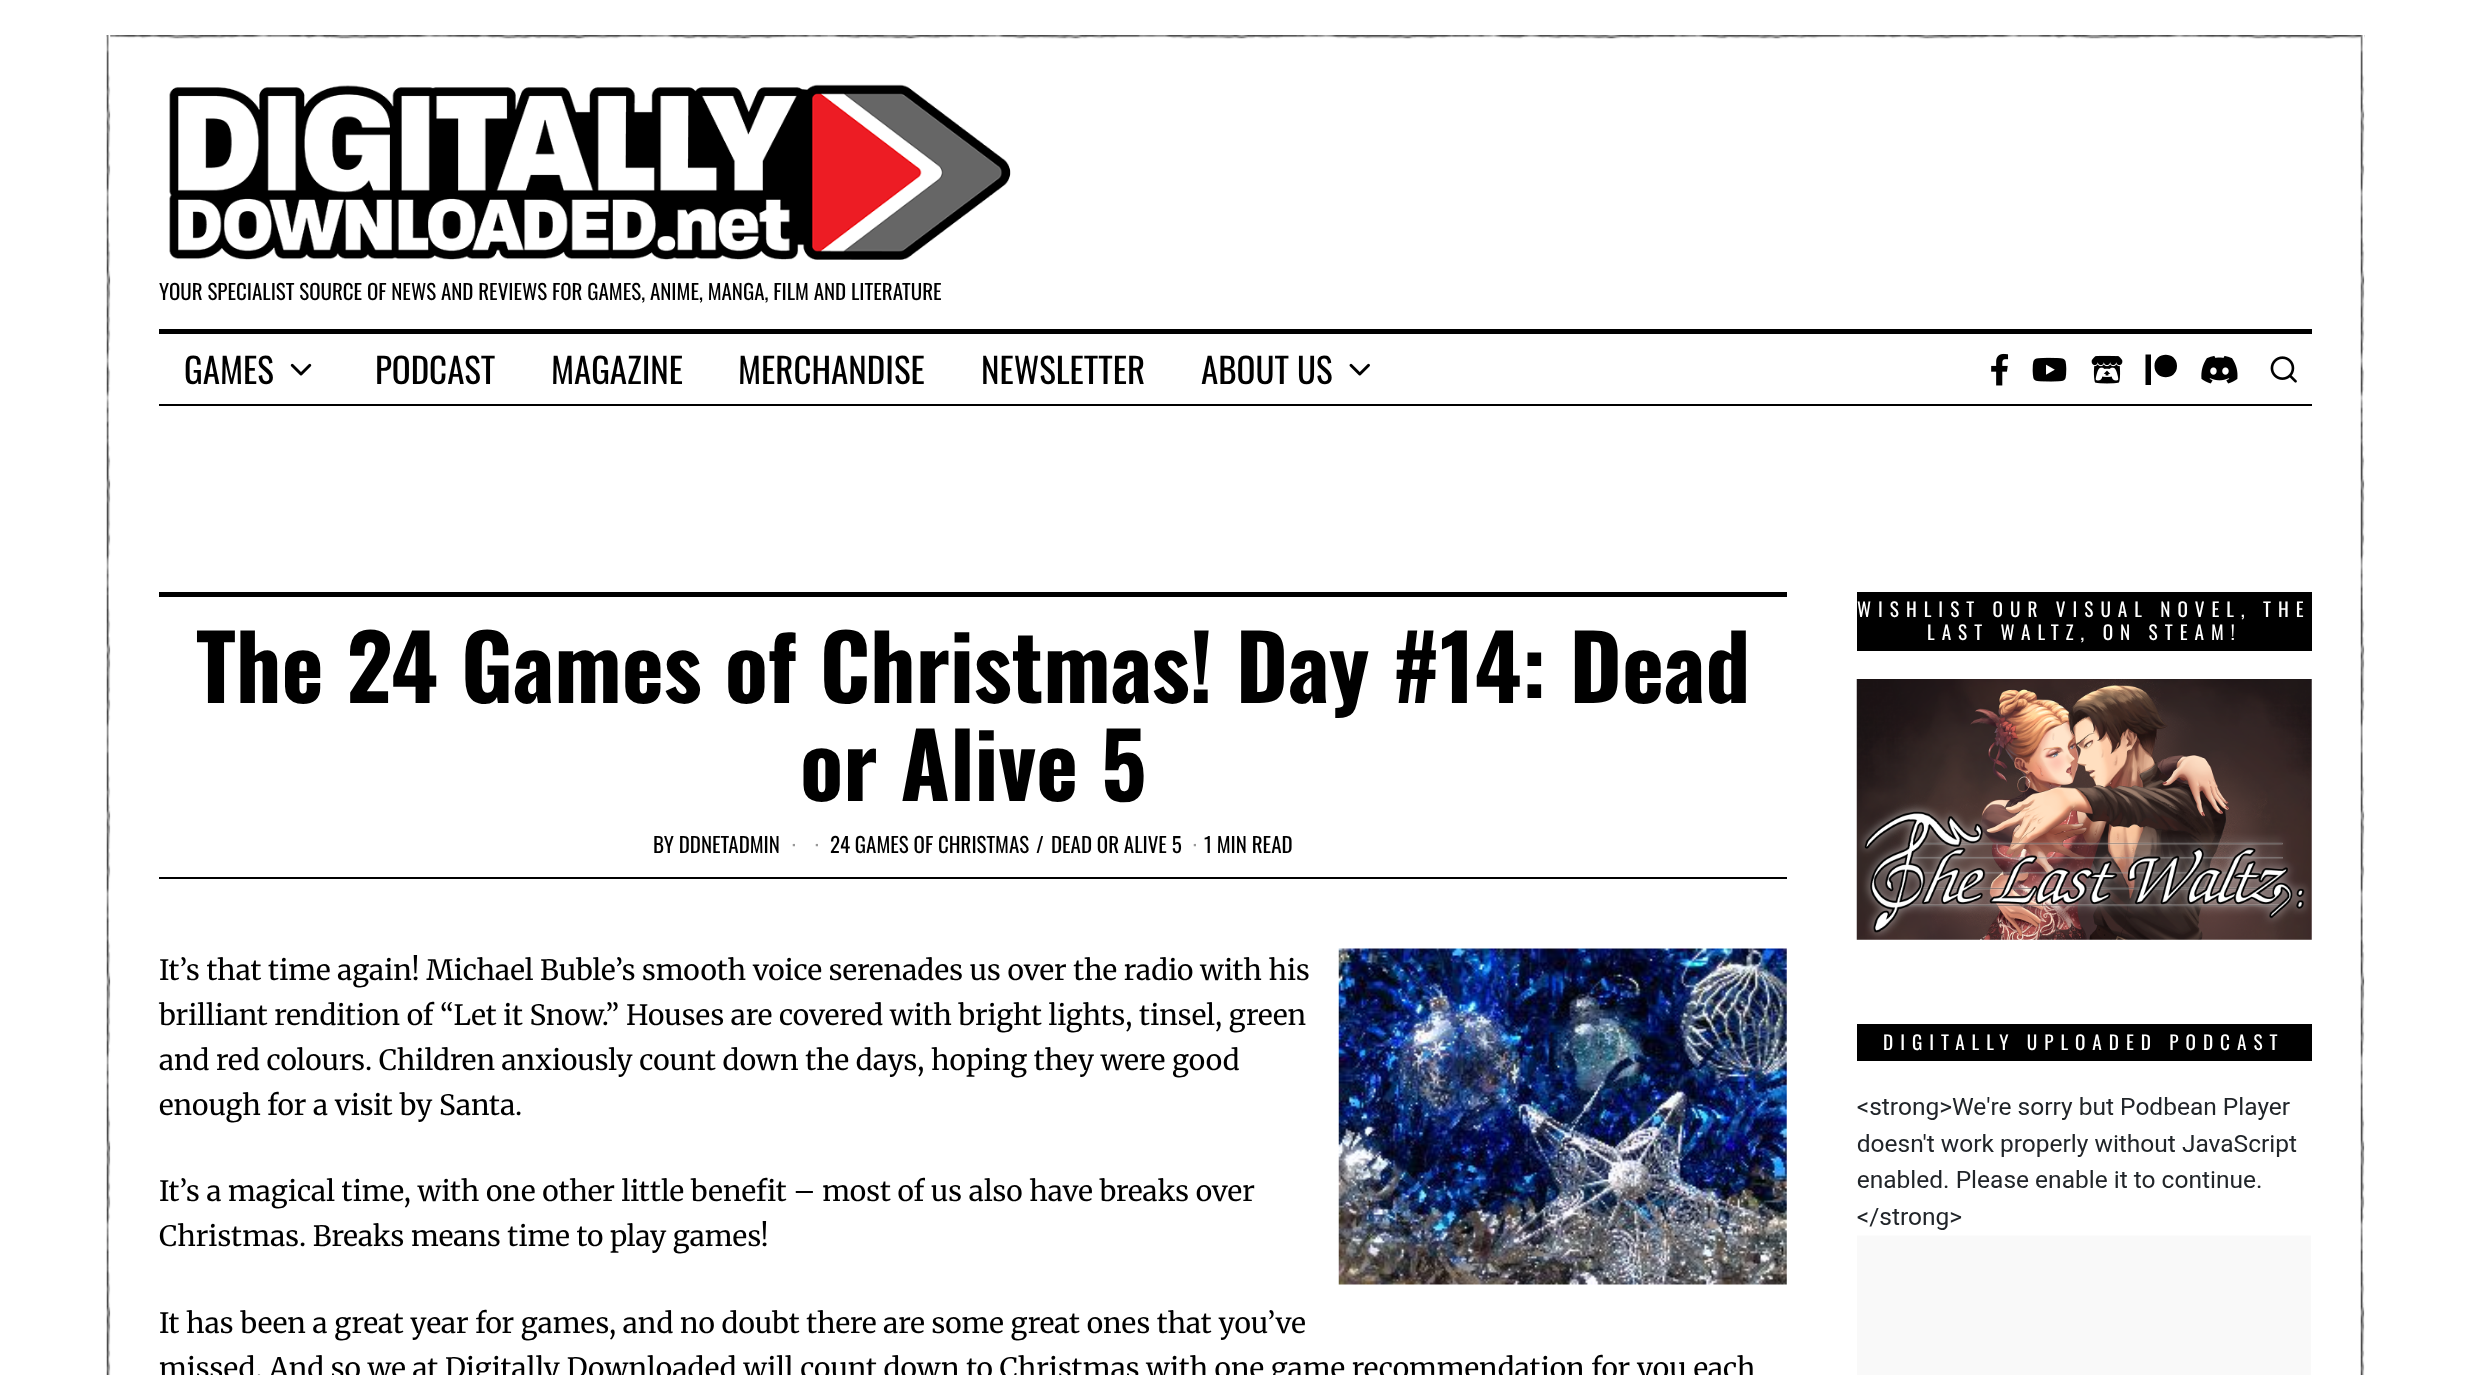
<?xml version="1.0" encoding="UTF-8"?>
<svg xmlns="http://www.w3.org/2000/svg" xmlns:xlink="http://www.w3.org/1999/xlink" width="2470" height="1375">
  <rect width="100%" height="100%" fill="#ffffff" />
  <image x="106" y="35" width="2259" height="4" xlink:href="image1.png" />
  <image x="106" y="35" width="5" height="1340" xlink:href="image2.png" />
  <image x="169" y="84" width="842" height="176" xlink:href="image3.png" />
  <rect x="159" y="329" width="2153" height="5" fill="#000000" />
  <rect x="159" y="404" width="2153" height="2" fill="#000000" />
  <image x="290" y="363" width="22" height="13" xlink:href="image4.png" />
  <image x="1349" y="363" width="21" height="13" xlink:href="image5.png" />
  <image x="1991" y="353" width="18" height="33" xlink:href="image6.png" />
  <image x="2032" y="357" width="35" height="25" xlink:href="image7.png" />
  <image x="2091" y="355" width="32" height="29" xlink:href="image8.png" />
  <path d="M 2177 366 c 0 15 -22.5 15 -22.5 0 c 0 -15 22.5 -15 22.5 0 z m -31.5 19 v -30.5 h 5.5 v 30.5 z" fill="#000000" />
  <image x="2201" y="355" width="37" height="29" xlink:href="image9.png" />
  <image x="2270" y="356" width="27" height="27" xlink:href="image10.png" />
  <rect x="159" y="592" width="1628" height="5" fill="#000000" />
  <rect x="159" y="877" width="1628" height="2" fill="#000000" />
  <image x="1338" y="948" width="449" height="337" xlink:href="image11.png" />
  <rect x="1857" y="592" width="455" height="59" fill="#000000" />
  <image x="1856" y="679" width="456" height="261" xlink:href="image12.png" />
  <rect x="1857" y="1024" width="455" height="37" fill="#000000" />
  <image x="1857" y="1097" width="454" height="278" xlink:href="image13.png" />
  <image x="2360" y="35" width="5" height="1340" xlink:href="image14.png" />
  <text x="159" y="300" style="font-family: Oswald; font-size: 21px; fill: #000000">YOUR SPECIALIST SOURCE OF NEWS AND REVIEWS FOR GAMES, ANIME, MANGA, FILM AND LITERATURE</text>
  <text x="184" y="384" style="font-family: Oswald; font-size: 35px; fill: #000000">GAMES</text>
  <text x="375" y="384" style="font-family: Oswald; font-size: 35px; fill: #000000">PODCAST</text>
  <text x="551" y="384" style="font-family: Oswald; font-size: 35px; fill: #000000">MAGAZINE</text>
  <text x="738" y="384" style="font-family: Oswald; font-size: 35px; fill: #000000">MERCHANDISE</text>
  <text x="981" y="384" style="font-family: Oswald; font-size: 35px; fill: #000000">NEWSLETTER</text>
  <text x="1201" y="384" style="font-family: Oswald; font-size: 35px; fill: #000000">ABOUT US</text>
  <text x="196" y="703" style="font-family: Oswald; font-size: 89.6px; font-weight: bold; fill: #000000">The 24 Games of Christmas! Day #14: Dead</text>
  <text x="800" y="801" style="font-family: Oswald; font-size: 89.6px; font-weight: bold; fill: #000000">or Alive 5</text>
  <text x="653" y="853" style="font-family: Oswald; font-size: 21px; fill: #000000">BY DDNETADMIN</text>
  <text x="792" y="853" style="font-family: Oswald; font-size: 21px; fill: #999999">·</text>
  <text x="815" y="853" style="font-family: Oswald; font-size: 21px; fill: #999999">·</text>
  <text x="830" y="853" style="font-family: Oswald; font-size: 21px; fill: #000000">24 GAMES OF CHRISTMAS</text>
  <text x="1036" y="853" style="font-family: Oswald; font-size: 21px; fill: #000000">/</text>
  <text x="1051" y="853" style="font-family: Oswald; font-size: 21px; fill: #000000">DEAD OR ALIVE 5</text>
  <text x="1193" y="853" style="font-family: Oswald; font-size: 21px; fill: #999999">·</text>
  <text x="1204" y="853" style="font-family: Oswald; font-size: 21px; fill: #000000">1 MIN READ</text>
  <text x="159" y="980" style="font-family: Merriweather; font-size: 28px; fill: #000000">It’s that time again! Michael Buble’s smooth voice serenades us over the radio with his</text>
  <text x="159" y="1025" style="font-family: Merriweather; font-size: 28px; fill: #000000">brilliant rendition of “Let it Snow.” Houses are covered with bright lights, tinsel, green</text>
  <text x="159" y="1070" style="font-family: Merriweather; font-size: 28px; fill: #000000">and red colours. Children anxiously count down the days, hoping they were good</text>
  <text x="159" y="1115" style="font-family: Merriweather; font-size: 28px; fill: #000000">enough for a visit by Santa.</text>
  <text x="159" y="1201" style="font-family: Merriweather; font-size: 28px; fill: #000000">It’s a magical time, with one other little benefit – most of us also have breaks over</text>
  <text x="159" y="1246" style="font-family: Merriweather; font-size: 28px; fill: #000000">Christmas. Breaks means time to play games!</text>
  <text x="159" y="1333" style="font-family: Merriweather; font-size: 28px; fill: #000000">It has been a great year for games, and no doubt there are some great ones that you’ve</text>
  <text x="159" y="1378" style="font-family: Merriweather; font-size: 28px; fill: #000000">missed. And so we at Digitally Downloaded will count down to Christmas with one game recommendation for you each</text>
  <text x="1857" y="617" style="font-family: Oswald; font-size: 19.25px; letter-spacing: 7px; fill: #ffffff">WISHLIST OUR VISUAL NOVEL, THE</text>
  <text x="1927" y="640" style="font-family: Oswald; font-size: 19.25px; letter-spacing: 7px; fill: #ffffff">LAST WALTZ, ON STEAM!</text>
  <text x="1883" y="1050" style="font-family: Oswald; font-size: 19.25px; letter-spacing: 7px; fill: #ffffff">DIGITALLY UPLOADED PODCAST</text>
</svg>
